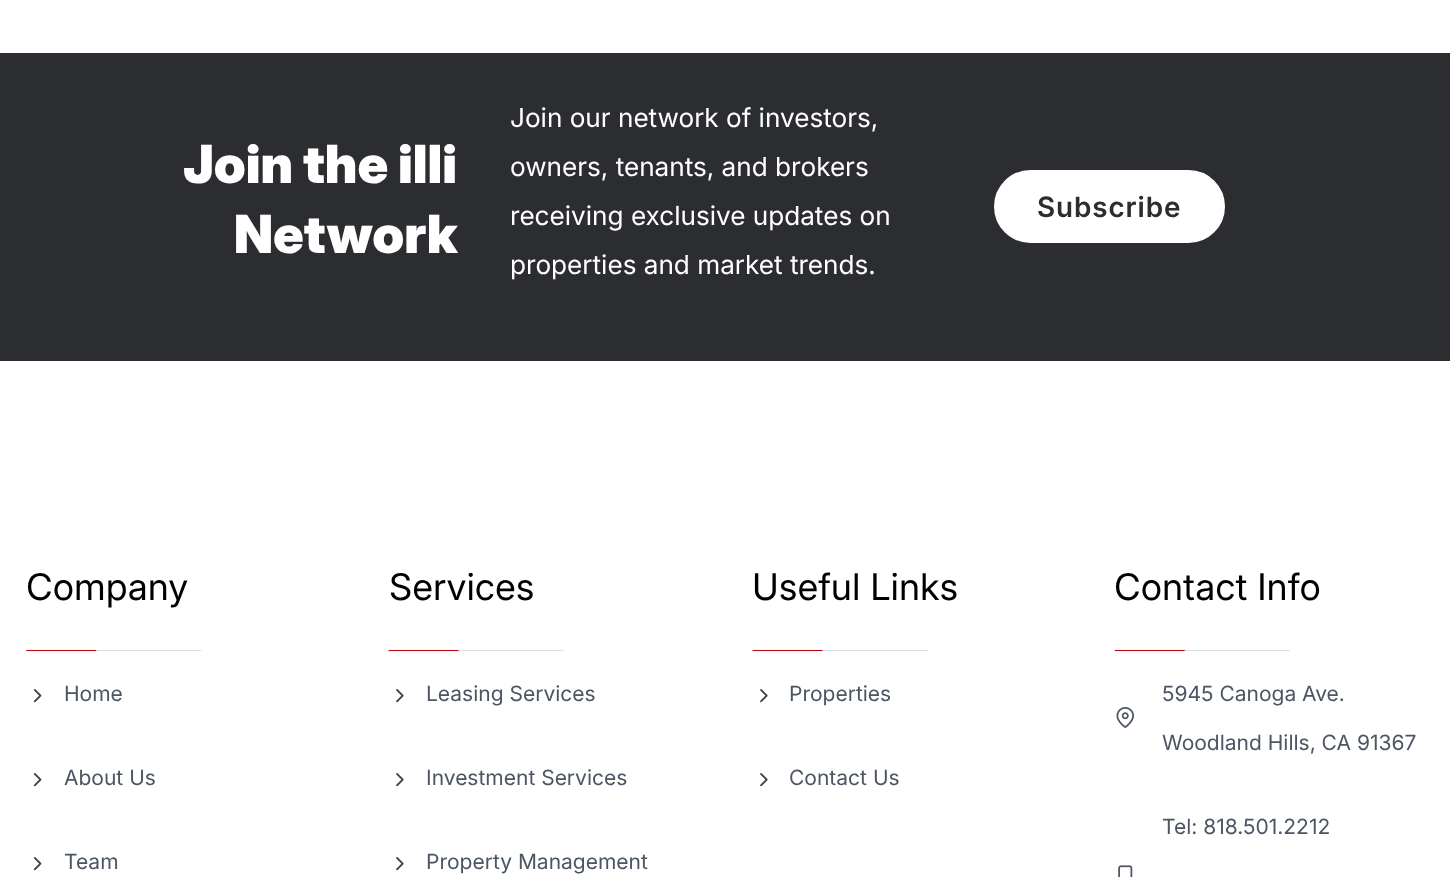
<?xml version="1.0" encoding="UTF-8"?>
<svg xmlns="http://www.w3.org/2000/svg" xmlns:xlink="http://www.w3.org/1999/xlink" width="1450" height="877">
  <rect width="100%" height="100%" fill="#ffffff" />
  <rect y="53" width="1450" height="308" fill="#2b2d30" />
  <rect x="995" y="171" width="229" height="71" rx="35.5" fill="#ffffff" stroke="#ffffff" stroke-width="2" />
  <image x="26" y="649" width="176" height="3" xlink:href="image1.png" />
  <image x="33" y="689" width="9" height="14" xlink:href="image2.png" />
  <image x="33" y="773" width="9" height="14" xlink:href="image2.png" />
  <image x="33" y="857" width="9" height="14" xlink:href="image2.png" />
  <image x="388" y="649" width="176" height="3" xlink:href="image3.png" />
  <image x="396" y="689" width="8" height="14" xlink:href="image4.png" />
  <image x="396" y="773" width="8" height="14" xlink:href="image4.png" />
  <image x="396" y="857" width="8" height="14" xlink:href="image4.png" />
  <image x="752" y="649" width="176" height="3" xlink:href="image3.png" />
  <image x="760" y="689" width="8" height="14" xlink:href="image4.png" />
  <image x="760" y="773" width="8" height="14" xlink:href="image4.png" />
  <image x="1114" y="649" width="176" height="3" xlink:href="image5.png" />
  <image x="1116" y="707" width="18" height="21" xlink:href="image6.png" />
  <image x="1118" y="865" width="15" height="12" xlink:href="image7.png" />
  <text x="183" y="183" style="font-family: Inter; font-size: 52.5px; font-weight: 900; fill: #ffffff">Join the illi</text>
  <text x="234" y="253" style="font-family: Inter; font-size: 52.5px; font-weight: 900; fill: #ffffff">Network</text>
  <text x="510" y="127" style="font-family: Inter; font-size: 26.25px; fill: #ffffff">Join our network of investors,</text>
  <text x="510" y="176" style="font-family: Inter; font-size: 26.25px; fill: #ffffff">owners, tenants, and brokers</text>
  <text x="510" y="225" style="font-family: Inter; font-size: 26.25px; fill: #ffffff">receiving exclusive updates on</text>
  <text x="510" y="274" style="font-family: Inter; font-size: 26.25px; fill: #ffffff">properties and market trends.</text>
  <text x="1037" y="217" style="font-family: Inter; font-size: 28px; font-weight: 600; letter-spacing: 0.9px; fill: #2b2d30">Subscribe</text>
  <text x="26" y="600" style="font-family: 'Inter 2'; font-size: 36.75px; fill: #000000">Company</text>
  <text x="64" y="701" style="font-family: 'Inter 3'; font-size: 21px; fill: #4b5563">Home</text>
  <text x="64" y="785" style="font-family: 'Inter 3'; font-size: 21px; fill: #4b5563">About Us</text>
  <text x="64" y="869" style="font-family: 'Inter 3'; font-size: 21px; fill: #4b5563">Team</text>
  <text x="389" y="600" style="font-family: 'Inter 2'; font-size: 36.75px; fill: #000000">Services</text>
  <text x="426" y="701" style="font-family: 'Inter 3'; font-size: 21px; fill: #4b5563">Leasing Services</text>
  <text x="426" y="785" style="font-family: 'Inter 3'; font-size: 21px; fill: #4b5563">Investment Services</text>
  <text x="426" y="869" style="font-family: 'Inter 3'; font-size: 21px; fill: #4b5563">Property Management</text>
  <text x="752" y="600" style="font-family: 'Inter 2'; font-size: 36.75px; fill: #000000">Useful Links</text>
  <text x="789" y="701" style="font-family: 'Inter 3'; font-size: 21px; fill: #4b5563">Properties</text>
  <text x="789" y="785" style="font-family: 'Inter 3'; font-size: 21px; fill: #4b5563">Contact Us</text>
  <text x="1114" y="600" style="font-family: 'Inter 2'; font-size: 36.75px; fill: #000000">Contact Info</text>
  <text x="1162" y="701" style="font-family: 'Inter 3'; font-size: 21px; fill: #4b5563">5945 Canoga Ave.</text>
  <text x="1162" y="750" style="font-family: 'Inter 3'; font-size: 21px; fill: #4b5563">Woodland Hills, CA 91367</text>
  <text x="1162" y="834" style="font-family: 'Inter 3'; font-size: 21px; fill: #4b5563">Tel: 818.501.2212</text>
</svg>
